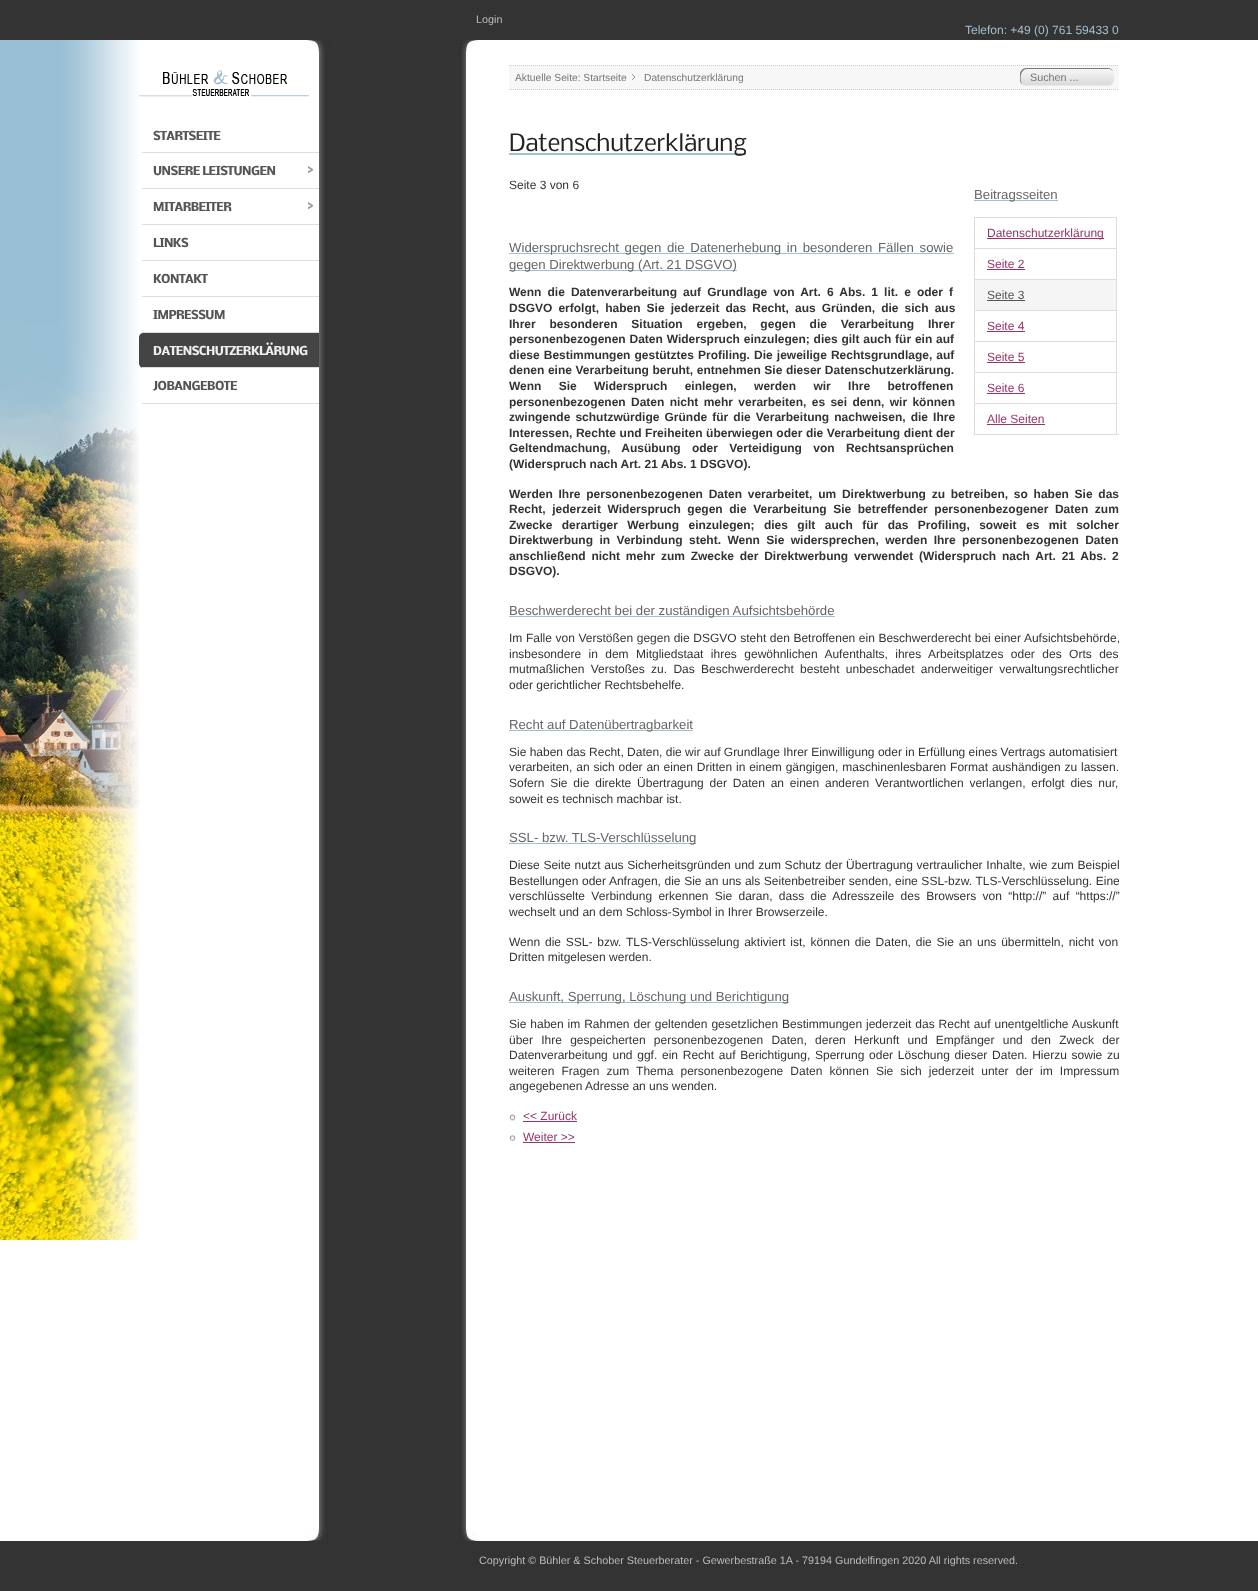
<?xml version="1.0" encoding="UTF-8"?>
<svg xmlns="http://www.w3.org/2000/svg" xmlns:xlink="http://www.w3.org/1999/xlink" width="1258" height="1591">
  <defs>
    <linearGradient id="g1" gradientUnits="userSpaceOnUse" x1="1067" y1="68" x2="1067" y2="86"><stop offset="0" stop-color="#f8f8f8" /><stop offset="1" stop-color="#d9d9d9" /></linearGradient>
  </defs>
  <rect width="100%" height="100%" fill="#ffffff" />
  <image x="319" y="52" width="147" height="1477" xlink:href="image1.png" />
  <rect width="1258" height="40" fill="#333333" />
  <image x="307" y="40" width="172" height="12" xlink:href="image2.png" />
  <image x="0" y="40" width="139" height="1200" xlink:href="image3.png" />
  <image x="139" y="70" width="170" height="27" xlink:href="image4.png" />
  <rect x="142" y="152" width="177" height="1" fill="#dddddd" />
  <rect x="142" y="188" width="177" height="1" fill="#dddddd" />
  <rect x="142" y="224" width="177" height="1" fill="#dddddd" />
  <rect x="142" y="260" width="177" height="1" fill="#dddddd" />
  <rect x="142" y="296" width="177" height="1" fill="#dddddd" />
  <rect x="142" y="332" width="177" height="1" fill="#dddddd" />
  <path d="M 143 333 h 176 v 35 h -175 c -3 0 -5 -2 -5 -5 v -26 c 0 -2 2 -4 4 -4 z" fill="#444444" />
  <rect x="142" y="367" width="177" height="1" fill="#dddddd" />
  <rect x="142" y="403" width="177" height="1" fill="#dddddd" />
  <rect x="509" y="65" width="610" height="25" fill="#f7f7f7" />
  <path d="M 509 65.5 h 610" fill="none" stroke="#cccccc" stroke-dasharray="1 1" />
  <path d="M 509 89.5 h 610" fill="none" stroke="#cccccc" stroke-dasharray="1 1" />
  <image x="632" y="74" width="3" height="6" xlink:href="image5.png" />
  <rect x="1020" y="68" width="94" height="18" rx="6" fill="url(#g1)" />
  <path d="M 1027 69 h 83 l 3 2 c -1 -2 -3 -3 -5 -3 h -82 c -3 0 -6 3 -6 6 v 6 c 0 2 1 4 3 5 c -4 -4 -3 -16 4 -16 z" fill="#000000" fill-opacity="0.5" />
  <path d="M 1020 79 c 0 10 13 7 20 7 h 54 c 7 0 20 3 20 -7 c 0 3 -3 6 -6 6 h -82 c -3 0 -6 -3 -6 -6 z" fill="#ffffff" fill-opacity="0.4" />
  <rect x="509" y="153" width="237" height="2" fill="#a4bfcc" />
  <rect x="509" y="253" width="445" height="1" fill="#a4bfcc" />
  <rect x="509" y="270" width="228" height="1" fill="#a4bfcc" />
  <rect x="974" y="200" width="84" height="1" fill="#a4bfcc" />
  <rect x="1117" y="434" width="2" height="1" fill="#dddddd" />
  <rect x="974.5" y="217.5" width="142" height="31" fill="none" stroke="#dddddd" />
  <rect x="987" y="238" width="117" height="1" fill="#993366" />
  <rect x="974.5" y="248.5" width="142" height="31" fill="none" stroke="#dddddd" />
  <rect x="987" y="269" width="38" height="1" fill="#993366" />
  <rect x="974.5" y="279.5" width="142" height="31" fill="#000000" fill-opacity="0.04" stroke="#dddddd" />
  <rect x="987" y="300" width="38" height="1" fill="#555555" />
  <rect x="974.5" y="310.5" width="142" height="31" fill="none" stroke="#dddddd" />
  <rect x="987" y="331" width="38" height="1" fill="#993366" />
  <rect x="974.5" y="341.5" width="142" height="31" fill="none" stroke="#dddddd" />
  <rect x="987" y="362" width="38" height="1" fill="#993366" />
  <rect x="974.5" y="372.5" width="142" height="31" fill="none" stroke="#dddddd" />
  <rect x="987" y="393" width="38" height="1" fill="#993366" />
  <rect x="974.5" y="403.5" width="142" height="31" fill="none" stroke="#dddddd" />
  <rect x="987" y="424" width="58" height="1" fill="#993366" />
  <rect x="509" y="616" width="326" height="1" fill="#a4bfcc" />
  <rect x="509" y="730" width="184" height="1" fill="#a4bfcc" />
  <rect x="509" y="843" width="187" height="1" fill="#a4bfcc" />
  <rect x="509" y="1002" width="280" height="1" fill="#a4bfcc" />
  <image x="509" y="1114" width="7" height="7" xlink:href="image6.png" />
  <rect x="523" y="1121" width="54" height="1" fill="#993366" />
  <image x="509" y="1134" width="7" height="7" xlink:href="image7.png" />
  <rect x="523" y="1142" width="52" height="1" fill="#993366" />
  <rect y="1541" width="1258" height="50" fill="#333333" />
  <image x="307" y="1529" width="172" height="12" xlink:href="image8.png" />
  <text x="476" y="23" style="font-family: Liberation Sans; font-size: 10.8px; fill: #bbbbbb">Login</text>
  <text x="965" y="34" style="font-family: Liberation Sans; font-size: 12px; fill: #a4bfcc">Telefon: +49 (0) 761 59433 0</text>
  <text x="153" y="140" style="font-family: Nobile; font-size: 11.4px; font-weight: bold; letter-spacing: -0.5px; fill: #555555">STARTSEITE</text>
  <text x="153" y="175" style="font-family: Nobile; font-size: 11.4px; font-weight: bold; letter-spacing: -0.5px; fill: #555555">UNSERE LEISTUNGEN</text>
  <text x="307" y="173" style="font-family: Nobile; font-size: 11.4px; font-weight: bold; letter-spacing: -0.5px; fill: #999999">&gt;</text>
  <text x="153" y="211" style="font-family: Nobile; font-size: 11.4px; font-weight: bold; letter-spacing: -0.5px; fill: #555555">MITARBEITER</text>
  <text x="307" y="209" style="font-family: Nobile; font-size: 11.4px; font-weight: bold; letter-spacing: -0.5px; fill: #999999">&gt;</text>
  <text x="153" y="247" style="font-family: Nobile; font-size: 11.4px; font-weight: bold; letter-spacing: -0.5px; fill: #555555">LINKS</text>
  <text x="153" y="283" style="font-family: Nobile; font-size: 11.4px; font-weight: bold; letter-spacing: -0.5px; fill: #555555">KONTAKT</text>
  <text x="153" y="319" style="font-family: Nobile; font-size: 11.4px; font-weight: bold; letter-spacing: -0.5px; fill: #555555">IMPRESSUM</text>
  <text x="153" y="355" style="font-family: Nobile; font-size: 11.4px; font-weight: bold; letter-spacing: -0.5px; fill: #eeeeee">DATENSCHUTZERKLÄRUNG</text>
  <text x="153" y="390" style="font-family: Nobile; font-size: 11.4px; font-weight: bold; letter-spacing: -0.5px; fill: #555555">JOBANGEBOTE</text>
  <text x="515" y="81" style="font-family: Liberation Sans; font-size: 10.25px; fill: #777777">Aktuelle Seite: Startseite</text>
  <text x="644" y="81" style="font-family: Liberation Sans; font-size: 10.25px; fill: #777777">Datenschutzerklärung</text>
  <text x="1030" y="81" style="font-family: Liberation Sans; font-size: 10.8px; fill: #777777">Suchen ...</text>
  <text x="509" y="151" style="font-family: Nobile; font-size: 22.75px; letter-spacing: -0.25px; fill: #222222">Datenschutzerklärung</text>
  <text x="509" y="189" style="font-family: Liberation Sans; font-size: 12px; fill: #333333">Seite 3 von 6</text>
  <text x="509" y="252" word-spacing="2" style="font-family: Liberation Sans; font-size: 13.2px; fill: #666666">Widerspruchsrecht gegen die Datenerhebung in besonderen Fällen sowie</text>
  <text x="509" y="269" style="font-family: Liberation Sans; font-size: 13.2px; fill: #666666">gegen Direktwerbung (Art. 21 DSGVO)</text>
  <text x="974" y="199" style="font-family: Liberation Sans; font-size: 13.2px; fill: #666666">Beitragsseiten</text>
  <text x="987" y="237" style="font-family: Liberation Sans; font-size: 12px; fill: #993366">Datenschutzerklärung</text>
  <text x="987" y="268" style="font-family: Liberation Sans; font-size: 12px; fill: #993366">Seite 2</text>
  <text x="987" y="299" style="font-family: Liberation Sans; font-size: 12px; fill: #555555">Seite 3</text>
  <text x="987" y="330" style="font-family: Liberation Sans; font-size: 12px; fill: #993366">Seite 4</text>
  <text x="987" y="361" style="font-family: Liberation Sans; font-size: 12px; fill: #993366">Seite 5</text>
  <text x="987" y="392" style="font-family: Liberation Sans; font-size: 12px; fill: #993366">Seite 6</text>
  <text x="987" y="423" style="font-family: Liberation Sans; font-size: 12px; fill: #993366">Alle Seiten</text>
  <text x="509" y="296" word-spacing="2.75" style="font-family: Liberation Sans; font-size: 12px; font-weight: bold; fill: #333333">Wenn die Datenverarbeitung auf Grundlage von Art. 6 Abs. 1 lit. e oder f</text>
  <text x="509" y="312" word-spacing="2.75" style="font-family: Liberation Sans; font-size: 12px; font-weight: bold; fill: #333333">DSGVO erfolgt, haben Sie jederzeit das Recht, aus Gründen, die sich aus</text>
  <text x="509" y="328" word-spacing="10.5" style="font-family: Liberation Sans; font-size: 12px; font-weight: bold; fill: #333333">Ihrer besonderen Situation ergeben, gegen die Verarbeitung Ihrer</text>
  <text x="509" y="343" word-spacing="0.5" style="font-family: Liberation Sans; font-size: 12px; font-weight: bold; fill: #333333">personenbezogenen Daten Widerspruch einzulegen; dies gilt auch für ein auf</text>
  <text x="509" y="359" word-spacing="0.75" style="font-family: Liberation Sans; font-size: 12px; font-weight: bold; fill: #333333">diese Bestimmungen gestütztes Profiling. Die jeweilige Rechtsgrundlage, auf</text>
  <text x="509" y="374" word-spacing="0.25" style="font-family: Liberation Sans; font-size: 12px; font-weight: bold; fill: #333333">denen eine Verarbeitung beruht, entnehmen Sie dieser Datenschutzerklärung.</text>
  <text x="509" y="390" word-spacing="14" style="font-family: Liberation Sans; font-size: 12px; font-weight: bold; fill: #333333">Wenn Sie Widerspruch einlegen, werden wir Ihre betroffenen</text>
  <text x="509" y="406" word-spacing="2" style="font-family: Liberation Sans; font-size: 12px; font-weight: bold; fill: #333333">personenbezogenen Daten nicht mehr verarbeiten, es sei denn, wir können</text>
  <text x="509" y="421" word-spacing="1.75" style="font-family: Liberation Sans; font-size: 12px; font-weight: bold; fill: #333333">zwingende schutzwürdige Gründe für die Verarbeitung nachweisen, die Ihre</text>
  <text x="509" y="437" word-spacing="0.25" style="font-family: Liberation Sans; font-size: 12px; font-weight: bold; fill: #333333">Interessen, Rechte und Freiheiten überwiegen oder die Verarbeitung dient der</text>
  <text x="509" y="452" word-spacing="8" style="font-family: Liberation Sans; font-size: 12px; font-weight: bold; fill: #333333">Geltendmachung, Ausübung oder Verteidigung von Rechtsansprüchen</text>
  <text x="509" y="468" style="font-family: Liberation Sans; font-size: 12px; font-weight: bold; fill: #333333">(Widerspruch nach Art. 21 Abs. 1 DSGVO).</text>
  <text x="509" y="498" word-spacing="2.4" style="font-family: Liberation Sans; font-size: 12px; font-weight: bold; fill: #333333">Werden Ihre personenbezogenen Daten verarbeitet, um Direktwerbung zu betreiben, so haben Sie das</text>
  <text x="509" y="513" word-spacing="3.25" style="font-family: Liberation Sans; font-size: 12px; font-weight: bold; fill: #333333">Recht, jederzeit Widerspruch gegen die Verarbeitung Sie betreffender personenbezogener Daten zum</text>
  <text x="509" y="529" word-spacing="6.1" style="font-family: Liberation Sans; font-size: 12px; font-weight: bold; fill: #333333">Zwecke derartiger Werbung einzulegen; dies gilt auch für das Profiling, soweit es mit solcher</text>
  <text x="509" y="544" word-spacing="3.1" style="font-family: Liberation Sans; font-size: 12px; font-weight: bold; fill: #333333">Direktwerbung in Verbindung steht. Wenn Sie widersprechen, werden Ihre personenbezogenen Daten</text>
  <text x="509" y="560" word-spacing="2.4" style="font-family: Liberation Sans; font-size: 12px; font-weight: bold; fill: #333333">anschließend nicht mehr zum Zwecke der Direktwerbung verwendet (Widerspruch nach Art. 21 Abs. 2</text>
  <text x="509" y="575" style="font-family: Liberation Sans; font-size: 12px; font-weight: bold; fill: #333333">DSGVO).</text>
  <text x="509" y="615" style="font-family: Liberation Sans; font-size: 13.2px; fill: #666666">Beschwerderecht bei der zuständigen Aufsichtsbehörde</text>
  <text x="509" y="642" word-spacing="0.25" style="font-family: Liberation Sans; font-size: 12px; fill: #333333">Im Falle von Verstößen gegen die DSGVO steht den Betroffenen ein Beschwerderecht bei einer Aufsichtsbehörde,</text>
  <text x="509" y="658" word-spacing="4.1" style="font-family: Liberation Sans; font-size: 12px; fill: #333333">insbesondere in dem Mitgliedstaat ihres gewöhnlichen Aufenthalts, ihres Arbeitsplatzes oder des Orts des</text>
  <text x="509" y="673" word-spacing="3" style="font-family: Liberation Sans; font-size: 12px; fill: #333333">mutmaßlichen Verstoßes zu. Das Beschwerderecht besteht unbeschadet anderweitiger verwaltungsrechtlicher</text>
  <text x="509" y="689" style="font-family: Liberation Sans; font-size: 12px; fill: #333333">oder gerichtlicher Rechtsbehelfe.</text>
  <text x="509" y="729" style="font-family: Liberation Sans; font-size: 13.2px; fill: #666666">Recht auf Datenübertragbarkeit</text>
  <text x="509" y="756" style="font-family: Liberation Sans; font-size: 12px; fill: #333333">Sie haben das Recht, Daten, die wir auf Grundlage Ihrer Einwilligung oder in Erfüllung eines Vertrags automatisiert</text>
  <text x="509" y="771" word-spacing="0.5" style="font-family: Liberation Sans; font-size: 12px; fill: #333333">verarbeiten, an sich oder an einen Dritten in einem gängigen, maschinenlesbaren Format aushändigen zu lassen.</text>
  <text x="509" y="787" word-spacing="2.5" style="font-family: Liberation Sans; font-size: 12px; fill: #333333">Sofern Sie die direkte Übertragung der Daten an einen anderen Verantwortlichen verlangen, erfolgt dies nur,</text>
  <text x="509" y="803" style="font-family: Liberation Sans; font-size: 12px; fill: #333333">soweit es technisch machbar ist.</text>
  <text x="509" y="842" style="font-family: Liberation Sans; font-size: 13.2px; fill: #666666">SSL- bzw. TLS-Verschlüsselung</text>
  <text x="509" y="869" word-spacing="0.4" style="font-family: Liberation Sans; font-size: 12px; fill: #333333">Diese Seite nutzt aus Sicherheitsgründen und zum Schutz der Übertragung vertraulicher Inhalte, wie zum Beispiel</text>
  <text x="509" y="885" word-spacing="0.25" style="font-family: Liberation Sans; font-size: 12px; fill: #333333">Bestellungen oder Anfragen, die Sie an uns als Seitenbetreiber senden, eine SSL-bzw. TLS-Verschlüsselung. Eine</text>
  <text x="509" y="900" word-spacing="3" style="font-family: Liberation Sans; font-size: 12px; fill: #333333">verschlüsselte Verbindung erkennen Sie daran, dass die Adresszeile des Browsers von “http://” auf “https://”</text>
  <text x="509" y="916" style="font-family: Liberation Sans; font-size: 12px; fill: #333333">wechselt und an dem Schloss-Symbol in Ihrer Browserzeile.</text>
  <text x="509" y="946" word-spacing="1.5" style="font-family: Liberation Sans; font-size: 12px; fill: #333333">Wenn die SSL- bzw. TLS-Verschlüsselung aktiviert ist, können die Daten, die Sie an uns übermitteln, nicht von</text>
  <text x="509" y="961" style="font-family: Liberation Sans; font-size: 12px; fill: #333333">Dritten mitgelesen werden.</text>
  <text x="509" y="1001" style="font-family: Liberation Sans; font-size: 13.2px; fill: #666666">Auskunft, Sperrung, Löschung und Berichtigung</text>
  <text x="509" y="1028" word-spacing="0.6" style="font-family: Liberation Sans; font-size: 12px; fill: #333333">Sie haben im Rahmen der geltenden gesetzlichen Bestimmungen jederzeit das Recht auf unentgeltliche Auskunft</text>
  <text x="509" y="1044" word-spacing="4.9" style="font-family: Liberation Sans; font-size: 12px; fill: #333333">über Ihre gespeicherten personenbezogenen Daten, deren Herkunft und Empfänger und den Zweck der</text>
  <text x="509" y="1059" word-spacing="1.4" style="font-family: Liberation Sans; font-size: 12px; fill: #333333">Datenverarbeitung und ggf. ein Recht auf Berichtigung, Sperrung oder Löschung dieser Daten. Hierzu sowie zu</text>
  <text x="509" y="1075" word-spacing="3.75" style="font-family: Liberation Sans; font-size: 12px; fill: #333333">weiteren Fragen zum Thema personenbezogene Daten können Sie sich jederzeit unter der im Impressum</text>
  <text x="509" y="1090" style="font-family: Liberation Sans; font-size: 12px; fill: #333333">angegebenen Adresse an uns wenden.</text>
  <text x="523" y="1120" style="font-family: Liberation Sans; font-size: 12px; fill: #993366">&lt;&lt; Zurück</text>
  <text x="523" y="1141" style="font-family: Liberation Sans; font-size: 12px; fill: #993366">Weiter &gt;&gt;</text>
  <text x="479" y="1564" style="font-family: Liberation Sans; font-size: 10.8px; fill: #bbbbbb">Copyright © Bühler &amp; Schober Steuerberater - Gewerbestraße 1A - 79194 Gundelfingen 2020 All rights reserved.</text>
</svg>
